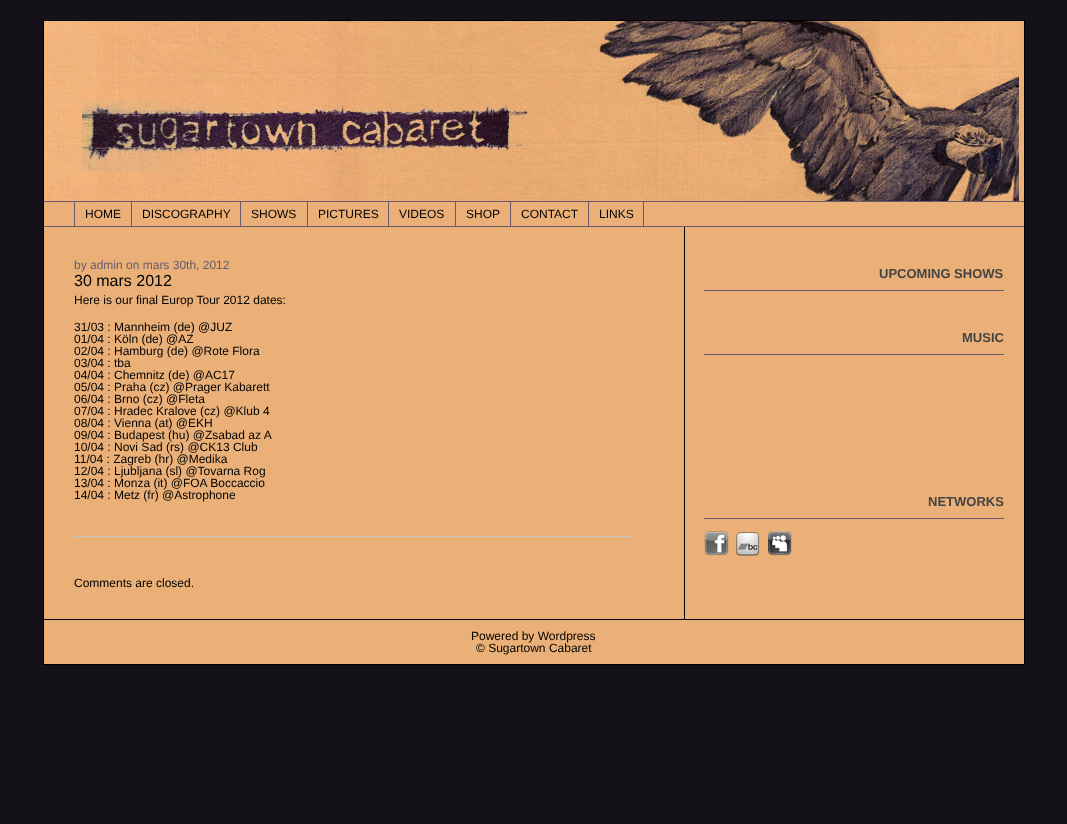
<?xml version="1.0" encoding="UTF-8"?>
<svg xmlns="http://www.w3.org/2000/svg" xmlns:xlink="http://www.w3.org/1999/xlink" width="1067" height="824">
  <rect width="100%" height="100%" fill="#141119" />
  <rect x="43.5" y="20.5" width="981" height="644" fill="#eab078" stroke="#000000" />
  <image x="44" y="21" width="975" height="180" xlink:href="image1.png" />
  <rect x="44" y="201" width="980" height="1" fill="#675b6d" />
  <rect x="44" y="226" width="980" height="1" fill="#675b6d" />
  <rect x="131" y="202" width="1" height="24" fill="#675b6d" />
  <rect x="74" y="202" width="1" height="24" fill="#675b6d" />
  <rect x="240" y="202" width="1" height="24" fill="#675b6d" />
  <rect x="307" y="202" width="1" height="24" fill="#675b6d" />
  <rect x="388" y="202" width="1" height="24" fill="#675b6d" />
  <rect x="455" y="202" width="1" height="24" fill="#675b6d" />
  <rect x="510" y="202" width="1" height="24" fill="#675b6d" />
  <rect x="588" y="202" width="1" height="24" fill="#675b6d" />
  <rect x="643" y="202" width="1" height="24" fill="#675b6d" />
  <rect x="684" y="227" width="1" height="392" fill="#000000" />
  <path d="M 74 536.5 h 560" fill="none" stroke="#cccccc" stroke-dasharray="1 1" />
  <rect x="704" y="290" width="300" height="1" fill="#675b6d" />
  <rect x="704" y="354" width="300" height="1" fill="#675b6d" />
  <rect x="704" y="518" width="300" height="1" fill="#675b6d" />
  <image x="704" y="531" width="25" height="25" xlink:href="image2.png" />
  <image x="735" y="532" width="25" height="24" xlink:href="image3.png" />
  <image x="767" y="531" width="25" height="25" xlink:href="image4.png" />
  <rect x="44" y="619" width="980" height="1" fill="#000000" />
  <text x="85" y="218" style="font-family: Liberation Sans; font-size: 12px; fill: #000000">HOME</text>
  <text x="142" y="218" style="font-family: Liberation Sans; font-size: 12px; fill: #000000">DISCOGRAPHY</text>
  <text x="251" y="218" style="font-family: Liberation Sans; font-size: 12px; fill: #000000">SHOWS</text>
  <text x="318" y="218" style="font-family: Liberation Sans; font-size: 12px; fill: #000000">PICTURES</text>
  <text x="399" y="218" style="font-family: Liberation Sans; font-size: 12px; fill: #000000">VIDEOS</text>
  <text x="466" y="218" style="font-family: Liberation Sans; font-size: 12px; fill: #000000">SHOP</text>
  <text x="521" y="218" style="font-family: Liberation Sans; font-size: 12px; fill: #000000">CONTACT</text>
  <text x="599" y="218" style="font-family: Liberation Sans; font-size: 12px; fill: #000000">LINKS</text>
  <text x="74" y="269" style="font-family: Liberation Sans; font-size: 12px; fill: #675b6d">by admin on mars 30th, 2012</text>
  <text x="74" y="286" style="font-family: Liberation Sans; font-size: 16px; fill: #000000">30 mars 2012</text>
  <text x="74" y="304" style="font-family: Liberation Sans; font-size: 12px; fill: #000000">Here is our final Europ Tour 2012 dates:</text>
  <text x="74" y="331" style="font-family: Liberation Sans; font-size: 12px; fill: #000000">31/03 : Mannheim (de) @JUZ</text>
  <text x="74" y="343" style="font-family: Liberation Sans; font-size: 12px; fill: #000000">01/04 : Köln (de) @AZ</text>
  <text x="74" y="355" style="font-family: Liberation Sans; font-size: 12px; fill: #000000">02/04 : Hamburg (de) @Rote Flora</text>
  <text x="74" y="367" style="font-family: Liberation Sans; font-size: 12px; fill: #000000">03/04 : tba</text>
  <text x="74" y="379" style="font-family: Liberation Sans; font-size: 12px; fill: #000000">04/04 : Chemnitz (de) @AC17</text>
  <text x="74" y="391" style="font-family: Liberation Sans; font-size: 12px; fill: #000000">05/04 : Praha (cz) @Prager Kabarett</text>
  <text x="74" y="403" style="font-family: Liberation Sans; font-size: 12px; fill: #000000">06/04 : Brno (cz) @Fleta</text>
  <text x="74" y="415" style="font-family: Liberation Sans; font-size: 12px; fill: #000000">07/04 : Hradec Kralove (cz) @Klub 4</text>
  <text x="74" y="427" style="font-family: Liberation Sans; font-size: 12px; fill: #000000">08/04 : Vienna (at) @EKH</text>
  <text x="74" y="439" style="font-family: Liberation Sans; font-size: 12px; fill: #000000">09/04 : Budapest (hu) @Zsabad az A</text>
  <text x="74" y="451" style="font-family: Liberation Sans; font-size: 12px; fill: #000000">10/04 : Novi Sad (rs) @CK13 Club</text>
  <text x="74" y="463" style="font-family: Liberation Sans; font-size: 12px; fill: #000000">11/04 : Zagreb (hr) @Medika</text>
  <text x="74" y="475" style="font-family: Liberation Sans; font-size: 12px; fill: #000000">12/04 : Ljubljana (sl) @Tovarna Rog</text>
  <text x="74" y="487" style="font-family: Liberation Sans; font-size: 12px; fill: #000000">13/04 : Monza (it) @FOA Boccaccio</text>
  <text x="74" y="499" style="font-family: Liberation Sans; font-size: 12px; fill: #000000">14/04 : Metz (fr) @Astrophone</text>
  <text x="74" y="587" style="font-family: Liberation Sans; font-size: 12px; fill: #000000">Comments are closed.</text>
  <text x="879" y="278" style="font-family: Liberation Sans; font-size: 13px; font-weight: bold; fill: #444444">UPCOMING SHOWS</text>
  <text x="962" y="342" style="font-family: Liberation Sans; font-size: 13px; font-weight: bold; fill: #444444">MUSIC</text>
  <text x="928" y="506" style="font-family: Liberation Sans; font-size: 13px; font-weight: bold; fill: #444444">NETWORKS</text>
  <text x="471" y="640" style="font-family: Liberation Sans; font-size: 12px; fill: #000000">Powered by Wordpress</text>
  <text x="476" y="652" style="font-family: Liberation Sans; font-size: 12px; fill: #000000">© Sugartown Cabaret</text>
</svg>
